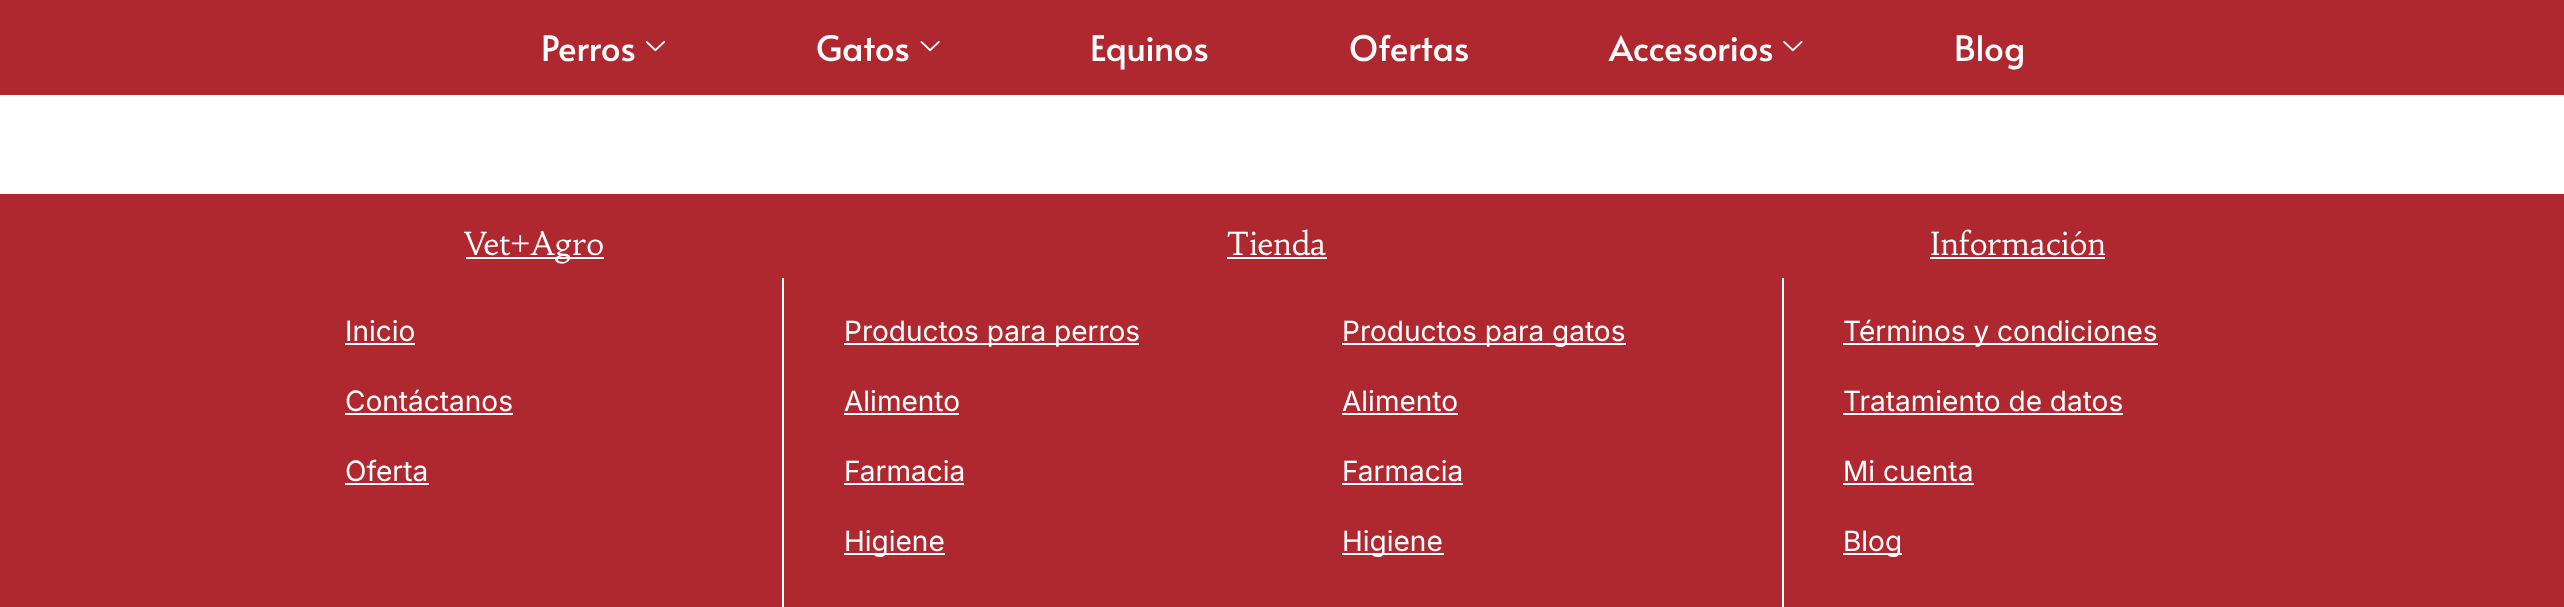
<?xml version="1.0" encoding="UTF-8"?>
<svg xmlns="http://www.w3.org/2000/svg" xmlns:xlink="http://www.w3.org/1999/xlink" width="2564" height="607">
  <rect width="100%" height="100%" fill="#ffffff" />
  <rect width="2564" height="95" fill="#af272f" />
  <image x="645" y="41" width="20" height="11" xlink:href="image1.png" />
  <image x="920" y="41" width="20" height="11" xlink:href="image2.png" />
  <image x="1783" y="41" width="20" height="11" xlink:href="image3.png" />
  <rect y="194" width="2564" height="413" fill="#af272f" />
  <rect x="466" y="257" width="138" height="2" fill="#ffffff" />
  <rect x="1227" y="257" width="100" height="2" fill="#ffffff" />
  <rect x="1930" y="257" width="175" height="2" fill="#ffffff" />
  <rect x="782" y="278" width="2" height="329" fill="#ffffff" />
  <rect x="345" y="343" width="70" height="2" fill="#ffffff" />
  <rect x="345" y="413" width="168" height="2" fill="#ffffff" />
  <rect x="345" y="483" width="84" height="2" fill="#ffffff" />
  <rect x="844" y="343" width="295" height="2" fill="#ffffff" />
  <rect x="844" y="413" width="115" height="2" fill="#ffffff" />
  <rect x="844" y="483" width="120" height="2" fill="#ffffff" />
  <rect x="844" y="553" width="101" height="2" fill="#ffffff" />
  <rect x="1342" y="343" width="284" height="2" fill="#ffffff" />
  <rect x="1342" y="413" width="116" height="2" fill="#ffffff" />
  <rect x="1342" y="483" width="121" height="2" fill="#ffffff" />
  <rect x="1342" y="553" width="102" height="2" fill="#ffffff" />
  <rect x="1782" y="278" width="2" height="329" fill="#ffffff" />
  <rect x="1843" y="343" width="315" height="2" fill="#ffffff" />
  <rect x="1843" y="413" width="280" height="2" fill="#ffffff" />
  <rect x="1843" y="483" width="131" height="2" fill="#ffffff" />
  <rect x="1843" y="553" width="59" height="2" fill="#ffffff" />
  <text x="541" y="61" style="font-family: Alata; font-size: 35px; fill: #ffffff">Perros</text>
  <text x="816" y="61" style="font-family: Alata; font-size: 35px; fill: #ffffff">Gatos</text>
  <text x="1090" y="61" style="font-family: Alata; font-size: 35px; fill: #ffffff">Equinos</text>
  <text x="1349" y="61" style="font-family: Alata; font-size: 35px; fill: #ffffff">Ofertas</text>
  <text x="1609" y="61" style="font-family: Alata; font-size: 35px; fill: #ffffff">Accesorios</text>
  <text x="1954" y="61" style="font-family: Alata; font-size: 35px; fill: #ffffff">Blog</text>
  <text x="465" y="255" style="font-family: Habibi; font-size: 31.5px; fill: #ffffff">Vet+Agro</text>
  <text x="1226" y="255" style="font-family: Habibi; font-size: 31.5px; fill: #ffffff">Tienda</text>
  <text x="1930" y="255" style="font-family: Habibi; font-size: 31.5px; fill: #ffffff">Información</text>
  <text x="345" y="341" style="font-family: Inter; font-size: 28px; fill: #ffffff">Inicio</text>
  <text x="345" y="411" style="font-family: Inter; font-size: 28px; fill: #ffffff">Contáctanos</text>
  <text x="345" y="481" style="font-family: Inter; font-size: 28px; fill: #ffffff">Oferta</text>
  <text x="844" y="341" style="font-family: Inter; font-size: 28px; fill: #ffffff">Productos para perros</text>
  <text x="844" y="411" style="font-family: Inter; font-size: 28px; fill: #ffffff">Alimento</text>
  <text x="844" y="481" style="font-family: Inter; font-size: 28px; fill: #ffffff">Farmacia</text>
  <text x="844" y="551" style="font-family: Inter; font-size: 28px; fill: #ffffff">Higiene</text>
  <text x="1342" y="341" style="font-family: Inter; font-size: 28px; fill: #ffffff">Productos para gatos</text>
  <text x="1342" y="411" style="font-family: Inter; font-size: 28px; fill: #ffffff">Alimento</text>
  <text x="1342" y="481" style="font-family: Inter; font-size: 28px; fill: #ffffff">Farmacia</text>
  <text x="1342" y="551" style="font-family: Inter; font-size: 28px; fill: #ffffff">Higiene</text>
  <text x="1843" y="341" style="font-family: Inter; font-size: 28px; fill: #ffffff">Términos y condiciones</text>
  <text x="1843" y="411" style="font-family: Inter; font-size: 28px; fill: #ffffff">Tratamiento de datos</text>
  <text x="1843" y="481" style="font-family: Inter; font-size: 28px; fill: #ffffff">Mi cuenta</text>
  <text x="1843" y="551" style="font-family: Inter; font-size: 28px; fill: #ffffff">Blog</text>
</svg>
